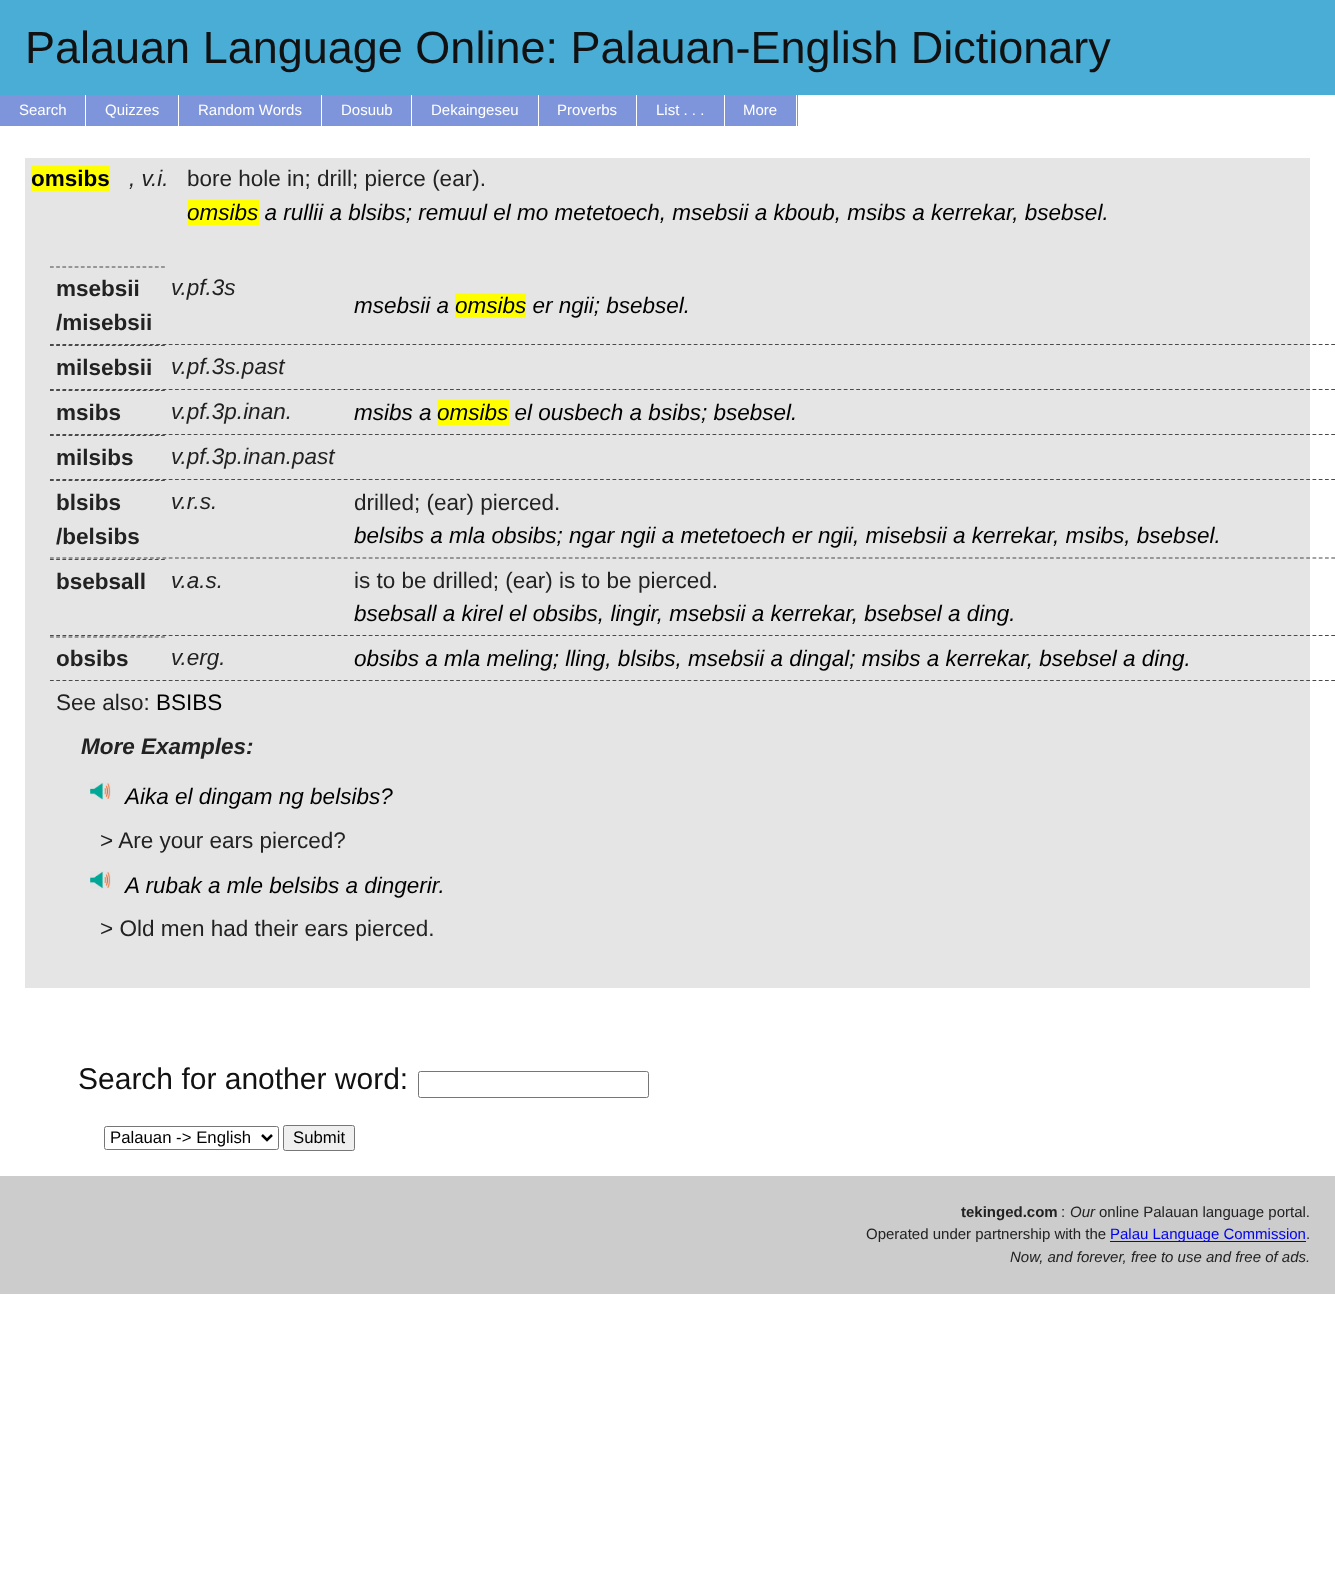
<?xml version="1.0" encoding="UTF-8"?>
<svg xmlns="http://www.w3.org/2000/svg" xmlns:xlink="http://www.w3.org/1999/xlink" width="1335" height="1580">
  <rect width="100%" height="100%" fill="#ffffff" />
  <rect width="1335" height="95" fill="#4aadd6" />
  <rect y="95" width="85" height="31" fill="#7f95db" />
  <rect x="86" y="95" width="92" height="31" fill="#7f95db" />
  <rect x="179" y="95" width="359" height="31" fill="#7f95db" />
  <rect x="321" y="95" width="1" height="31" fill="#ffffff" />
  <rect x="411" y="95" width="1" height="31" fill="#ffffff" />
  <rect x="539" y="95" width="185" height="31" fill="#7f95db" />
  <rect x="636" y="95" width="1" height="31" fill="#ffffff" />
  <rect x="725" y="95" width="73" height="31" fill="#7f95db" />
  <rect x="796" y="95" width="1" height="31" fill="#ffffff" />
  <rect x="25" y="158" width="1285" height="830" fill="#e5e5e5" />
  <rect x="31" y="166" width="79" height="25" fill="#ffff00" />
  <rect x="188" y="200" width="71" height="25" fill="#ffff00" />
  <path d="M 50 344.5 h 1285" fill="none" stroke="#494949" stroke-width="1.2" stroke-dasharray="3.75 2.5" />
  <path d="M 50 267 h 115" fill="none" stroke="#494949" stroke-width="1.2" stroke-dasharray="3.75 2.42" />
  <rect x="455" y="293" width="71" height="25" fill="#ffff00" />
  <path d="M 50 389.5 h 1285" fill="none" stroke="#494949" stroke-width="1.2" stroke-dasharray="3.75 2.5" />
  <path d="M 50 345.5 h 115" fill="none" stroke="#494949" stroke-width="1.2" stroke-dasharray="3.75 2.42" />
  <path d="M 50 434.5 h 1285" fill="none" stroke="#494949" stroke-width="1.2" stroke-dasharray="3.75 2.5" />
  <path d="M 50 390.5 h 115" fill="none" stroke="#494949" stroke-width="1.2" stroke-dasharray="3.75 2.42" />
  <rect x="438" y="400" width="71" height="25" fill="#ffff00" />
  <path d="M 50 479.5 h 1285" fill="none" stroke="#494949" stroke-width="1.2" stroke-dasharray="3.75 2.5" />
  <path d="M 50 435.5 h 115" fill="none" stroke="#494949" stroke-width="1.2" stroke-dasharray="3.75 2.42" />
  <path d="M 50 558 h 1285" fill="none" stroke="#494949" stroke-width="1.2" stroke-dasharray="3.75 2.5" />
  <path d="M 50 480.5 h 115" fill="none" stroke="#494949" stroke-width="1.2" stroke-dasharray="3.75 2.42" />
  <path d="M 50 635.5 h 1285" fill="none" stroke="#494949" stroke-width="1.2" stroke-dasharray="3.75 2.5" />
  <path d="M 50 559.5 h 115" fill="none" stroke="#494949" stroke-width="1.2" stroke-dasharray="3.75 2.42" />
  <path d="M 50 680.5 h 1285" fill="none" stroke="#494949" stroke-width="1.2" stroke-dasharray="3.75 2.5" />
  <path d="M 50 637 h 115" fill="none" stroke="#494949" stroke-width="1.2" stroke-dasharray="3.75 2.42" />
  <image x="90" y="782" width="21" height="18" xlink:href="image1.png" />
  <image x="90" y="871" width="21" height="18" xlink:href="image2.png" />
  <rect x="418.5" y="1071.5" width="230" height="26" rx="2" fill="none" stroke="#767676" />
  <rect x="104.5" y="1126.5" width="174" height="23" rx="2" fill="none" stroke="#767676" />
  <path d="M 262 1135 l 5 5 l 5 -5" fill="none" stroke="#000000" stroke-width="2.5" />
  <rect x="283.5" y="1125.5" width="71" height="25" rx="2" fill="#efefef" stroke="#767676" />
  <rect y="1176" width="1335" height="118" fill="#cccccc" />
  <rect x="1110" y="1241" width="196" height="1" fill="#0000ee" />
  <text x="25" y="63" style="font-family: Liberation Sans; font-size: 45px; fill: #111111">Palauan Language Online: Palauan-English Dictionary</text>
  <text x="19" y="115" style="font-family: Liberation Sans; font-size: 15px; fill: #ffffff">Search</text>
  <text x="105" y="115" style="font-family: Liberation Sans; font-size: 15px; fill: #ffffff">Quizzes</text>
  <text x="198" y="115" style="font-family: Liberation Sans; font-size: 15px; fill: #ffffff">Random Words</text>
  <text x="341" y="115" style="font-family: Liberation Sans; font-size: 15px; fill: #ffffff">Dosuub</text>
  <text x="431" y="115" style="font-family: Liberation Sans; font-size: 15px; fill: #ffffff">Dekaingeseu</text>
  <text x="557" y="115" style="font-family: Liberation Sans; font-size: 15px; fill: #ffffff">Proverbs</text>
  <text x="656" y="115" style="font-family: Liberation Sans; font-size: 15px; fill: #ffffff">List . . .</text>
  <text x="743" y="115" style="font-family: Liberation Sans; font-size: 15px; fill: #ffffff">More</text>
  <text x="31" y="186" style="font-family: Liberation Sans; font-size: 22.5px; font-weight: bold; fill: #000000">omsibs</text>
  <text x="129" y="186" style="font-family: Liberation Sans; font-size: 22.5px; font-style: italic; fill: #222222">, v.i.</text>
  <text x="187" y="186" style="font-family: Liberation Sans; font-size: 22.5px; fill: #222222">bore hole in; drill; pierce (ear).</text>
  <text x="187" y="220" style="font-family: Liberation Sans; font-size: 22.5px; font-style: italic; fill: #000000">omsibs a rullii a blsibs; remuul el mo metetoech, msebsii a kboub, msibs a kerrekar, bsebsel.</text>
  <text x="56" y="296" style="font-family: Liberation Sans; font-size: 22.5px; font-weight: bold; fill: #222222">msebsii</text>
  <text x="56" y="330" style="font-family: Liberation Sans; font-size: 22.5px; font-weight: bold; fill: #222222">/misebsii</text>
  <text x="171" y="295" style="font-family: Liberation Sans; font-size: 22.5px; font-style: italic; fill: #222222">v.pf.3s</text>
  <text x="354" y="313" style="font-family: Liberation Sans; font-size: 22.5px; font-style: italic; fill: #000000">msebsii a</text>
  <text x="455" y="313" style="font-family: Liberation Sans; font-size: 22.5px; font-style: italic; fill: #000000">omsibs er ngii; bsebsel.</text>
  <text x="56" y="375" style="font-family: Liberation Sans; font-size: 22.5px; font-weight: bold; fill: #222222">milsebsii</text>
  <text x="171" y="374" style="font-family: Liberation Sans; font-size: 22.5px; font-style: italic; fill: #222222">v.pf.3s.past</text>
  <text x="56" y="420" style="font-family: Liberation Sans; font-size: 22.5px; font-weight: bold; fill: #222222">msibs</text>
  <text x="171" y="419" style="font-family: Liberation Sans; font-size: 22.5px; font-style: italic; fill: #222222">v.pf.3p.inan.</text>
  <text x="354" y="420" style="font-family: Liberation Sans; font-size: 22.5px; font-style: italic; fill: #000000">msibs a</text>
  <text x="437" y="420" style="font-family: Liberation Sans; font-size: 22.5px; font-style: italic; fill: #000000">omsibs el ousbech a bsibs; bsebsel.</text>
  <text x="56" y="465" style="font-family: Liberation Sans; font-size: 22.5px; font-weight: bold; fill: #222222">milsibs</text>
  <text x="171" y="464" style="font-family: Liberation Sans; font-size: 22.5px; font-style: italic; fill: #222222">v.pf.3p.inan.past</text>
  <text x="56" y="510" style="font-family: Liberation Sans; font-size: 22.5px; font-weight: bold; fill: #222222">blsibs</text>
  <text x="56" y="544" style="font-family: Liberation Sans; font-size: 22.5px; font-weight: bold; fill: #222222">/belsibs</text>
  <text x="171" y="509" style="font-family: Liberation Sans; font-size: 22.5px; font-style: italic; fill: #222222">v.r.s.</text>
  <text x="354" y="510" style="font-family: Liberation Sans; font-size: 22.5px; fill: #222222">drilled; (ear) pierced.</text>
  <text x="354" y="543" style="font-family: Liberation Sans; font-size: 22.5px; font-style: italic; fill: #000000">belsibs a mla obsibs; ngar ngii a metetoech er ngii, misebsii a kerrekar, msibs, bsebsel.</text>
  <text x="56" y="589" style="font-family: Liberation Sans; font-size: 22.5px; font-weight: bold; fill: #222222">bsebsall</text>
  <text x="171" y="588" style="font-family: Liberation Sans; font-size: 22.5px; font-style: italic; fill: #222222">v.a.s.</text>
  <text x="354" y="588" style="font-family: Liberation Sans; font-size: 22.5px; fill: #222222">is to be drilled; (ear) is to be pierced.</text>
  <text x="354" y="621" style="font-family: Liberation Sans; font-size: 22.5px; font-style: italic; fill: #000000">bsebsall a kirel el obsibs, lingir, msebsii a kerrekar, bsebsel a ding.</text>
  <text x="56" y="666" style="font-family: Liberation Sans; font-size: 22.5px; font-weight: bold; fill: #222222">obsibs</text>
  <text x="171" y="665" style="font-family: Liberation Sans; font-size: 22.5px; font-style: italic; fill: #222222">v.erg.</text>
  <text x="354" y="666" style="font-family: Liberation Sans; font-size: 22.5px; font-style: italic; fill: #000000">obsibs a mla meling; lling, blsibs, msebsii a dingal; msibs a kerrekar, bsebsel a ding.</text>
  <text x="56" y="710" style="font-family: Liberation Sans; font-size: 22.5px; fill: #222222">See also:</text>
  <text x="156" y="710" style="font-family: Liberation Sans; font-size: 22.5px; fill: #000000">BSIBS</text>
  <text x="81" y="754" style="font-family: Liberation Sans; font-size: 22.5px; font-weight: bold; font-style: italic; fill: #222222">More Examples:</text>
  <text x="125" y="804" style="font-family: Liberation Sans; font-size: 22.5px; font-style: italic; fill: #000000">Aika el dingam ng belsibs?</text>
  <text x="100" y="848" style="font-family: Liberation Sans; font-size: 22.5px; fill: #222222">&gt; Are your ears pierced?</text>
  <text x="125" y="893" style="font-family: Liberation Sans; font-size: 22.5px; font-style: italic; fill: #000000">A rubak a mle belsibs a dingerir.</text>
  <text x="100" y="936" style="font-family: Liberation Sans; font-size: 22.5px; fill: #222222">&gt; Old men had their ears pierced.</text>
  <text x="78" y="1089" style="font-family: Liberation Sans; font-size: 30px; fill: #111111">Search for another word:</text>
  <text x="110" y="1143" style="font-family: Liberation Sans; font-size: 16.75px; fill: #000000">Palauan -&gt; English</text>
  <text x="293" y="1143" style="font-family: Liberation Sans; font-size: 16.75px; fill: #000000">Submit</text>
  <text x="961" y="1217" style="font-family: Liberation Sans; font-size: 15px; font-weight: bold; fill: #222222">tekinged.com</text>
  <text x="1061" y="1217" style="font-family: Liberation Sans; font-size: 15px; fill: #222222">:</text>
  <text x="1070" y="1217" style="font-family: Liberation Sans; font-size: 15px; font-style: italic; fill: #222222">Our</text>
  <text x="1099" y="1217" style="font-family: Liberation Sans; font-size: 15px; fill: #222222">online Palauan language portal.</text>
  <text x="866" y="1239" style="font-family: Liberation Sans; font-size: 15px; fill: #222222">Operated under partnership with the</text>
  <text x="1110" y="1239" style="font-family: Liberation Sans; font-size: 15px; fill: #0000ee">Palau Language Commission</text>
  <text x="1306" y="1239" style="font-family: Liberation Sans; font-size: 15px; fill: #222222">.</text>
  <text x="1010" y="1262" style="font-family: Liberation Sans; font-size: 15px; font-style: italic; fill: #222222">Now, and forever, free to use and free of ads.</text>
</svg>
